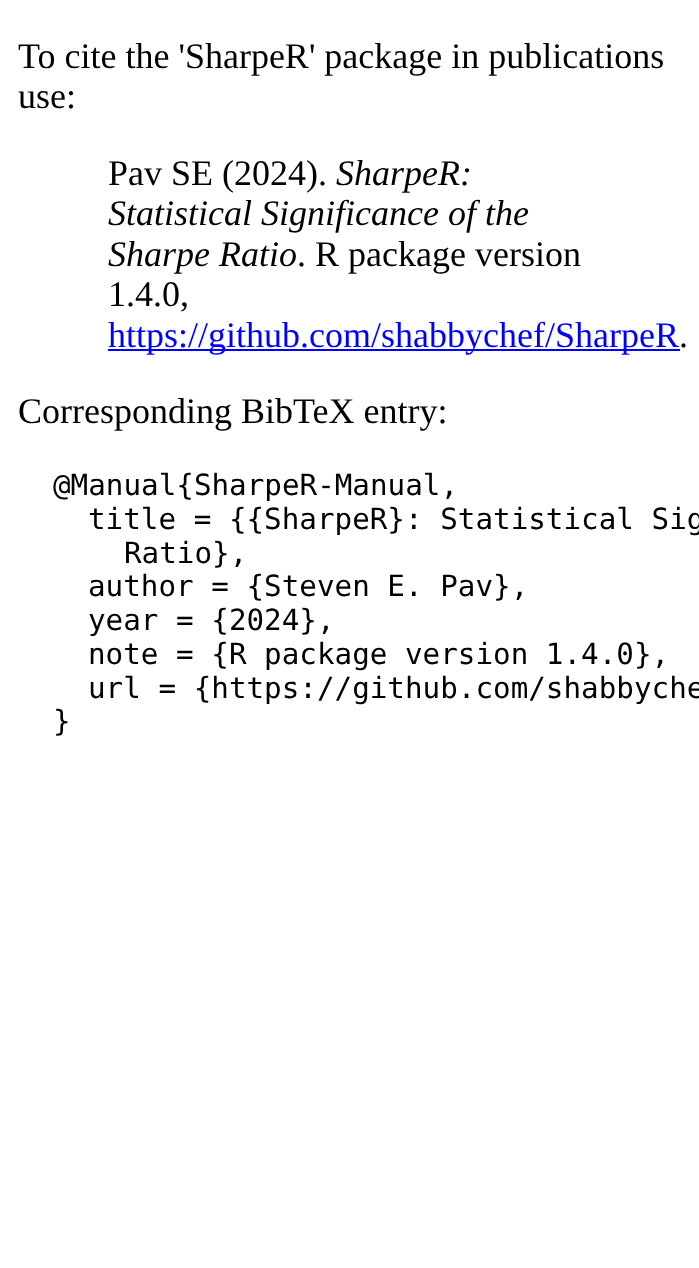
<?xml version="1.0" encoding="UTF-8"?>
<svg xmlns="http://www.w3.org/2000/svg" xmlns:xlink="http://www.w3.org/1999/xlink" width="699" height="1268">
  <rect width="100%" height="100%" fill="#ffffff" />
  <rect x="108" y="349" width="572" height="2" fill="#0000ff" />
  <text x="18" y="68" style="font-family: Liberation Serif; font-size: 36px; fill: #000000">To cite the 'SharpeR' package in publications</text>
  <text x="18" y="108" style="font-family: Liberation Serif; font-size: 36px; fill: #000000">use:</text>
  <text x="108" y="185" style="font-family: Liberation Serif; font-size: 36px; fill: #000000">Pav SE (2024).</text>
  <text x="336" y="185" style="font-family: Liberation Serif; font-size: 36px; font-style: italic; fill: #000000">SharpeR:</text>
  <text x="108" y="225" style="font-family: Liberation Serif; font-size: 36px; font-style: italic; fill: #000000">Statistical Significance of the</text>
  <text x="108" y="266" style="font-family: Liberation Serif; font-size: 36px; font-style: italic; fill: #000000">Sharpe Ratio</text>
  <text x="297" y="266" style="font-family: Liberation Serif; font-size: 36px; fill: #000000">. R package version</text>
  <text x="108" y="306" style="font-family: Liberation Serif; font-size: 36px; fill: #000000">1.4.0,</text>
  <text x="108" y="347" style="font-family: Liberation Serif; font-size: 36px; fill: #0000ff">https://github.com/shabbychef/SharpeR</text>
  <text x="679" y="347" style="font-family: Liberation Serif; font-size: 36px; fill: #000000">.</text>
  <text x="18" y="423" style="font-family: Liberation Serif; font-size: 36px; fill: #000000">Corresponding BibTeX entry:</text>
  <text x="53" y="495" style="font-family: DejaVu Sans Mono; font-size: 29.25px; fill: #000000">@Manual{SharpeR-Manual,</text>
  <text x="88" y="529" style="font-family: DejaVu Sans Mono; font-size: 29.25px; fill: #000000">title = {{SharpeR}: Statistical Sig</text>
  <text x="124" y="563" style="font-family: DejaVu Sans Mono; font-size: 29.25px; fill: #000000">Ratio},</text>
  <text x="88" y="596" style="font-family: DejaVu Sans Mono; font-size: 29.25px; fill: #000000">author = {Steven E. Pav},</text>
  <text x="88" y="630" style="font-family: DejaVu Sans Mono; font-size: 29.25px; fill: #000000">year = {2024},</text>
  <text x="88" y="664" style="font-family: DejaVu Sans Mono; font-size: 29.25px; fill: #000000">note = {R package version 1.4.0},</text>
  <text x="88" y="698" style="font-family: DejaVu Sans Mono; font-size: 29.25px; fill: #000000">url = {https://github.com/shabbyche</text>
  <text x="53" y="731" style="font-family: DejaVu Sans Mono; font-size: 29.25px; fill: #000000">}</text>
</svg>
